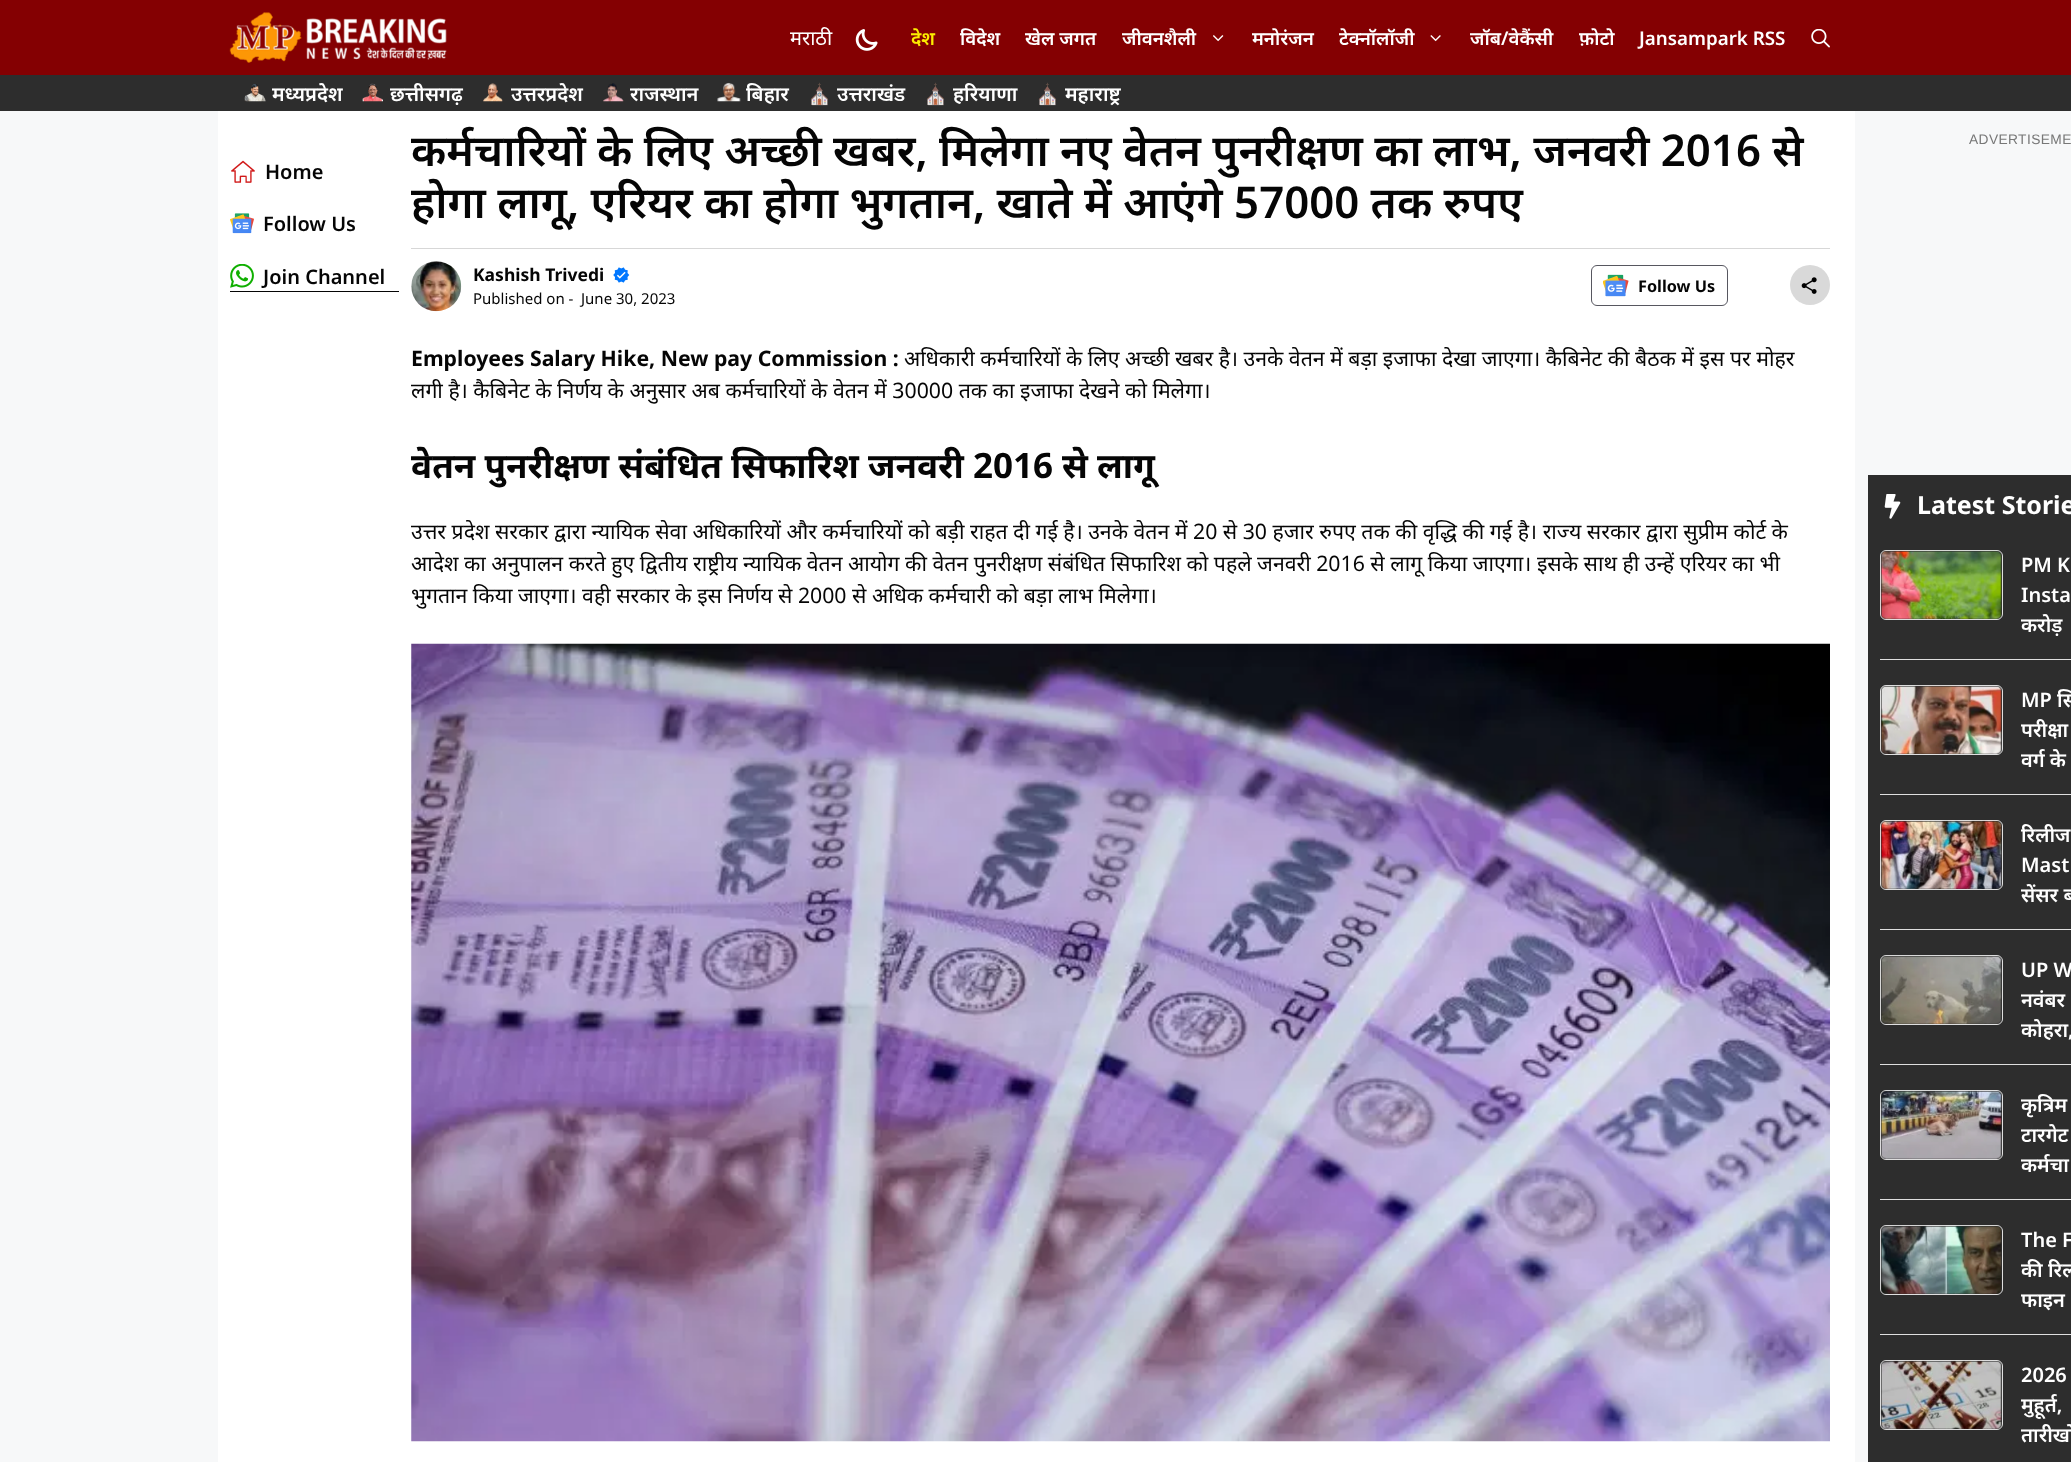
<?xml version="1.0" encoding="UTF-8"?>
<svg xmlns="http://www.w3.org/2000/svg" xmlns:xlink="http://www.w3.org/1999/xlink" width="2071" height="1462">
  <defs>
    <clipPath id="clip1"><rect x="2021" y="550" width="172" height="90" /></clipPath>
    <clipPath id="clip2"><rect x="2021" y="685" width="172" height="90" /></clipPath>
    <clipPath id="clip3"><rect x="2021" y="820" width="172" height="90" /></clipPath>
    <clipPath id="clip4"><rect x="2021" y="955" width="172" height="90" /></clipPath>
    <clipPath id="clip5"><rect x="2021" y="1090" width="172" height="90" /></clipPath>
    <clipPath id="clip6"><rect x="2021" y="1225" width="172" height="90" /></clipPath>
    <clipPath id="clip7"><rect x="2021" y="1360" width="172" height="90" /></clipPath>
  </defs>
  <rect width="100%" height="100%" fill="#f7f8f9" />
  <rect width="2071" height="75" fill="#840002" />
  <image x="229" y="12" width="218" height="51" xlink:href="image1.png" />
  <image x="855" y="29" width="23" height="22" xlink:href="image2.png" />
  <image x="1213" y="35" width="11" height="7" xlink:href="image3.png" />
  <image x="1430" y="35" width="11" height="7" xlink:href="image4.png" />
  <image x="1811" y="29" width="19" height="19" xlink:href="image5.png" />
  <rect y="75" width="2071" height="36" fill="#2d2d2d" />
  <image x="244" y="84" width="22" height="18" xlink:href="image6.png" />
  <image x="362" y="83" width="21" height="19" xlink:href="image7.png" />
  <image x="483" y="83" width="20" height="19" xlink:href="image8.png" />
  <image x="603" y="83" width="21" height="19" xlink:href="image9.png" />
  <image x="717" y="82" width="24" height="20" xlink:href="image10.png" />
  <rect x="218" y="111" width="1637" height="1351" fill="#ffffff" />
  <rect x="230" y="291" width="169" height="1" fill="#050505" />
  <image x="231" y="160" width="24" height="23" xlink:href="image11.png" />
  <image x="230" y="213" width="24" height="21" xlink:href="image12.png" />
  <image x="230" y="264" width="24" height="24" xlink:href="image13.png" />
  <rect x="411" y="248" width="1419" height="1" fill="#d7d7d7" />
  <image x="411" y="261" width="51" height="51" xlink:href="image14.png" />
  <image x="613" y="267" width="17" height="16" xlink:href="image15.png" />
  <rect x="1591.5" y="265.5" width="136" height="40" rx="5.5" fill="none" stroke="#575760" />
  <image x="1603" y="274" width="26" height="23" xlink:href="image16.png" />
  <circle cx="1810" cy="285" r="20" fill="#d9d9d9" />
  <image x="1801" y="277" width="16" height="17" xlink:href="image17.png" />
  <image x="411" y="643" width="1419" height="799" xlink:href="image18.png" />
  <rect x="1868" y="475" width="203" height="987" fill="#2d2d2d" />
  <image x="1884" y="494" width="17" height="25" xlink:href="image19.png" />
  <rect x="1880" y="659" width="191" height="1" fill="#dfdfdf" />
  <rect x="1880.5" y="550.5" width="122" height="69" rx="5.5" fill="none" stroke="#dfdfdf" />
  <image x="1880" y="550" width="122" height="69" xlink:href="image20.png" />
  <rect x="1880" y="794" width="191" height="1" fill="#dfdfdf" />
  <rect x="1880.5" y="685.5" width="122" height="69" rx="5.5" fill="none" stroke="#dfdfdf" />
  <image x="1880" y="685" width="122" height="69" xlink:href="image21.png" />
  <rect x="1880" y="929" width="191" height="1" fill="#dfdfdf" />
  <rect x="1880.5" y="820.5" width="122" height="69" rx="5.5" fill="none" stroke="#dfdfdf" />
  <image x="1880" y="820" width="122" height="69" xlink:href="image22.png" />
  <rect x="1880" y="1064" width="191" height="1" fill="#dfdfdf" />
  <rect x="1880.5" y="955.5" width="122" height="69" rx="5.5" fill="none" stroke="#dfdfdf" />
  <image x="1880" y="955" width="122" height="69" xlink:href="image23.png" />
  <rect x="1880" y="1199" width="191" height="1" fill="#dfdfdf" />
  <rect x="1880.5" y="1090.5" width="122" height="69" rx="5.5" fill="none" stroke="#dfdfdf" />
  <image x="1880" y="1090" width="122" height="69" xlink:href="image24.png" />
  <rect x="1880" y="1334" width="191" height="1" fill="#dfdfdf" />
  <rect x="1880.5" y="1225.5" width="122" height="69" rx="5.5" fill="none" stroke="#dfdfdf" />
  <image x="1880" y="1225" width="122" height="69" xlink:href="image25.png" />
  <rect x="1880.5" y="1360.5" width="122" height="69" rx="5.5" fill="none" stroke="#dfdfdf" />
  <image x="1880" y="1360" width="122" height="69" xlink:href="image26.png" />
  <text x="790" y="45" style="font-family: Noto Sans; font-size: 20px; fill: #ffffff">मराठी</text>
  <text x="911" y="45" style="font-family: Noto Sans; font-size: 18.75px; font-weight: 600; fill: #fced00">देश</text>
  <text x="960" y="45" style="font-family: Noto Sans; font-size: 18.75px; font-weight: 600; fill: #ffffff">विदेश</text>
  <text x="1025" y="45" style="font-family: Noto Sans; font-size: 18.75px; font-weight: 600; fill: #ffffff">खेल जगत</text>
  <text x="1122" y="45" style="font-family: Noto Sans; font-size: 18.75px; font-weight: 600; fill: #ffffff">जीवनशैली</text>
  <text x="1252" y="45" style="font-family: Noto Sans; font-size: 18.75px; font-weight: 600; fill: #ffffff">मनोरंजन</text>
  <text x="1339" y="45" style="font-family: Noto Sans; font-size: 18.75px; font-weight: 600; fill: #ffffff">टेक्नॉलॉजी</text>
  <text x="1470" y="45" style="font-family: Noto Sans; font-size: 18.75px; font-weight: 600; fill: #ffffff">जॉब/वेकैंसी</text>
  <text x="1579" y="45" style="font-family: Noto Sans; font-size: 18.75px; font-weight: 600; fill: #ffffff">फ़ोटो</text>
  <text x="1639" y="45" style="font-family: Noto Sans; font-size: 18.75px; font-weight: 600; fill: #ffffff">Jansampark RSS</text>
  <text x="272" y="101" style="font-family: Noto Sans; font-size: 20px; font-weight: 600; fill: #ffffff">मध्यप्रदेश</text>
  <text x="390" y="101" style="font-family: Noto Sans; font-size: 20px; font-weight: 600; fill: #ffffff">छत्तीसगढ़</text>
  <text x="511" y="101" style="font-family: Noto Sans; font-size: 20px; font-weight: 600; fill: #ffffff">उत्तरप्रदेश</text>
  <text x="630" y="101" style="font-family: Noto Sans; font-size: 20px; font-weight: 600; fill: #ffffff">राजस्थान</text>
  <text x="746" y="101" style="font-family: Noto Sans; font-size: 20px; font-weight: 600; fill: #ffffff">बिहार</text>
  <text x="807" y="101" style="font-family: Noto Color Emoji; font-size: 20px; font-weight: bold; fill: #ffffff">⛪</text>
  <text x="837" y="101" style="font-family: Noto Sans; font-size: 20px; font-weight: 600; fill: #ffffff">उत्तराखंड</text>
  <text x="923" y="101" style="font-family: Noto Color Emoji; font-size: 20px; font-weight: bold; fill: #ffffff">⛪</text>
  <text x="953" y="101" style="font-family: Noto Sans; font-size: 20px; font-weight: 600; fill: #ffffff">हरियाणा</text>
  <text x="1035" y="101" style="font-family: Noto Color Emoji; font-size: 20px; font-weight: bold; fill: #ffffff">⛪</text>
  <text x="1065" y="101" style="font-family: Noto Sans; font-size: 20px; font-weight: 600; fill: #ffffff">महाराष्ट्र</text>
  <text x="265" y="179" style="font-family: Noto Sans; font-size: 20px; font-weight: 600; fill: #050505">Home</text>
  <text x="263" y="231" style="font-family: Noto Sans; font-size: 20px; font-weight: 600; fill: #050505">Follow Us</text>
  <text x="263" y="284" style="font-family: Noto Sans; font-size: 20px; font-weight: 600; fill: #050505">Join Channel</text>
  <text x="411" y="166" style="font-family: Noto Sans; font-size: 43.75px; font-weight: 600; fill: #050505">कर्मचारियों के लिए अच्छी खबर, मिलेगा नए वेतन पुनरीक्षण का लाभ, जनवरी 2016 से</text>
  <text x="411" y="218" style="font-family: Noto Sans; font-size: 43.75px; font-weight: 600; fill: #050505">होगा लागू, एरियर का होगा भुगतान, खाते में आएंगे 57000 तक रुपए</text>
  <text x="473" y="281" style="font-family: Noto Sans; font-size: 17.5px; font-weight: bold; fill: #050505">Kashish Trivedi</text>
  <text x="473" y="304" style="font-family: Noto Sans; font-size: 15px; fill: #050505">Published on -</text>
  <text x="581" y="304" style="font-family: Noto Sans; font-size: 15px; fill: #050505">June 30, 2023</text>
  <text x="1638" y="292" style="font-family: Noto Sans; font-size: 16.25px; font-weight: bold; fill: #050505">Follow Us</text>
  <text x="411" y="366" style="font-family: Noto Sans; font-size: 21.25px; font-weight: bold; fill: #050505">Employees Salary Hike, New pay Commission :</text>
  <text x="904" y="366" style="font-family: Noto Sans; font-size: 21.25px; fill: #050505">अधिकारी कर्मचारियों के लिए अच्छी खबर है। उनके वेतन में बड़ा इजाफा देखा जाएगा। कैबिनेट की बैठक में इस पर मोहर</text>
  <text x="411" y="398" style="font-family: Noto Sans; font-size: 21.25px; fill: #050505">लगी है। कैबिनेट के निर्णय के अनुसार अब कर्मचारियों के वेतन में 30000 तक का इजाफा देखने को मिलेगा।</text>
  <text x="411" y="478" style="font-family: Noto Sans; font-size: 35px; font-weight: bold; fill: #050505">वेतन पुनरीक्षण संबंधित सिफारिश जनवरी 2016 से लागू</text>
  <text x="411" y="539" style="font-family: Noto Sans; font-size: 21.25px; fill: #050505">उत्तर प्रदेश सरकार द्वारा न्यायिक सेवा अधिकारियों और कर्मचारियों को बड़ी राहत दी गई है। उनके वेतन में 20 से 30 हजार रुपए तक की वृद्धि की गई है। राज्य सरकार द्वारा सुप्रीम कोर्ट के</text>
  <text x="411" y="571" style="font-family: Noto Sans; font-size: 21.25px; fill: #050505">आदेश का अनुपालन करते हुए द्वितीय राष्ट्रीय न्यायिक वेतन आयोग की वेतन पुनरीक्षण संबंधित सिफारिश को पहले जनवरी 2016 से लागू किया जाएगा। इसके साथ ही उन्हें एरियर का भी</text>
  <text x="411" y="603" style="font-family: Noto Sans; font-size: 21.25px; fill: #050505">भुगतान किया जाएगा। वही सरकार के इस निर्णय से 2000 से अधिक कर्मचारी को बड़ा लाभ मिलेगा।</text>
  <text x="1969" y="144" style="font-family: Liberation Sans; font-size: 13.75px; letter-spacing: 0.4px; fill: #777777">ADVERTISEME</text>
  <text x="1917" y="514" style="font-family: Noto Sans; font-size: 25px; font-weight: bold; fill: #ffffff">Latest Storie</text>
  <text x="2021" y="572" style="font-family: Noto Sans; font-size: 20px; font-weight: 600; fill: #ffffff">PM K</text>
  <text x="2021" y="602" style="font-family: Noto Sans; font-size: 20px; font-weight: 600; fill: #ffffff">Insta</text>
  <g clip-path="url(#clip1)">
    <text x="2021" y="632" style="font-family: Noto Sans; font-size: 20px; font-weight: 600; fill: #ffffff">करोड़</text>
  </g>
  <text x="2021" y="707" style="font-family: Noto Sans; font-size: 20px; font-weight: 600; fill: #ffffff">MP सि</text>
  <g clip-path="url(#clip2)">
    <text x="2021" y="737" style="font-family: Noto Sans; font-size: 20px; font-weight: 600; fill: #ffffff">परीक्षा</text>
    <text x="2021" y="767" style="font-family: Noto Sans; font-size: 20px; font-weight: 600; fill: #ffffff">वर्ग के</text>
  </g>
  <g clip-path="url(#clip3)">
    <text x="2021" y="842" style="font-family: Noto Sans; font-size: 20px; font-weight: 600; fill: #ffffff">रिलीज</text>
  </g>
  <text x="2021" y="872" style="font-family: Noto Sans; font-size: 20px; font-weight: 600; fill: #ffffff">Mast</text>
  <g clip-path="url(#clip3)">
    <text x="2021" y="902" style="font-family: Noto Sans; font-size: 20px; font-weight: 600; fill: #ffffff">सेंसर ब</text>
  </g>
  <text x="2021" y="977" style="font-family: Noto Sans; font-size: 20px; font-weight: 600; fill: #ffffff">UP W</text>
  <g clip-path="url(#clip4)">
    <text x="2021" y="1007" style="font-family: Noto Sans; font-size: 20px; font-weight: 600; fill: #ffffff">नवंबर</text>
    <text x="2021" y="1037" style="font-family: Noto Sans; font-size: 20px; font-weight: 600; fill: #ffffff">कोहरा,</text>
  </g>
  <g clip-path="url(#clip5)">
    <text x="2021" y="1112" style="font-family: Noto Sans; font-size: 20px; font-weight: 600; fill: #ffffff">कृत्रिम</text>
    <text x="2021" y="1142" style="font-family: Noto Sans; font-size: 20px; font-weight: 600; fill: #ffffff">टारगेट</text>
    <text x="2021" y="1172" style="font-family: Noto Sans; font-size: 20px; font-weight: 600; fill: #ffffff">कर्मचा</text>
  </g>
  <text x="2021" y="1247" style="font-family: Noto Sans; font-size: 20px; font-weight: 600; fill: #ffffff">The F</text>
  <g clip-path="url(#clip6)">
    <text x="2021" y="1277" style="font-family: Noto Sans; font-size: 20px; font-weight: 600; fill: #ffffff">की रिल</text>
    <text x="2021" y="1307" style="font-family: Noto Sans; font-size: 20px; font-weight: 600; fill: #ffffff">फाइन</text>
  </g>
  <text x="2021" y="1382" style="font-family: Noto Sans; font-size: 20px; font-weight: 600; fill: #ffffff">2026</text>
  <g clip-path="url(#clip7)">
    <text x="2021" y="1412" style="font-family: Noto Sans; font-size: 20px; font-weight: 600; fill: #ffffff">मुहूर्त,</text>
    <text x="2021" y="1442" style="font-family: Noto Sans; font-size: 20px; font-weight: 600; fill: #ffffff">तारीखों</text>
  </g>
</svg>
